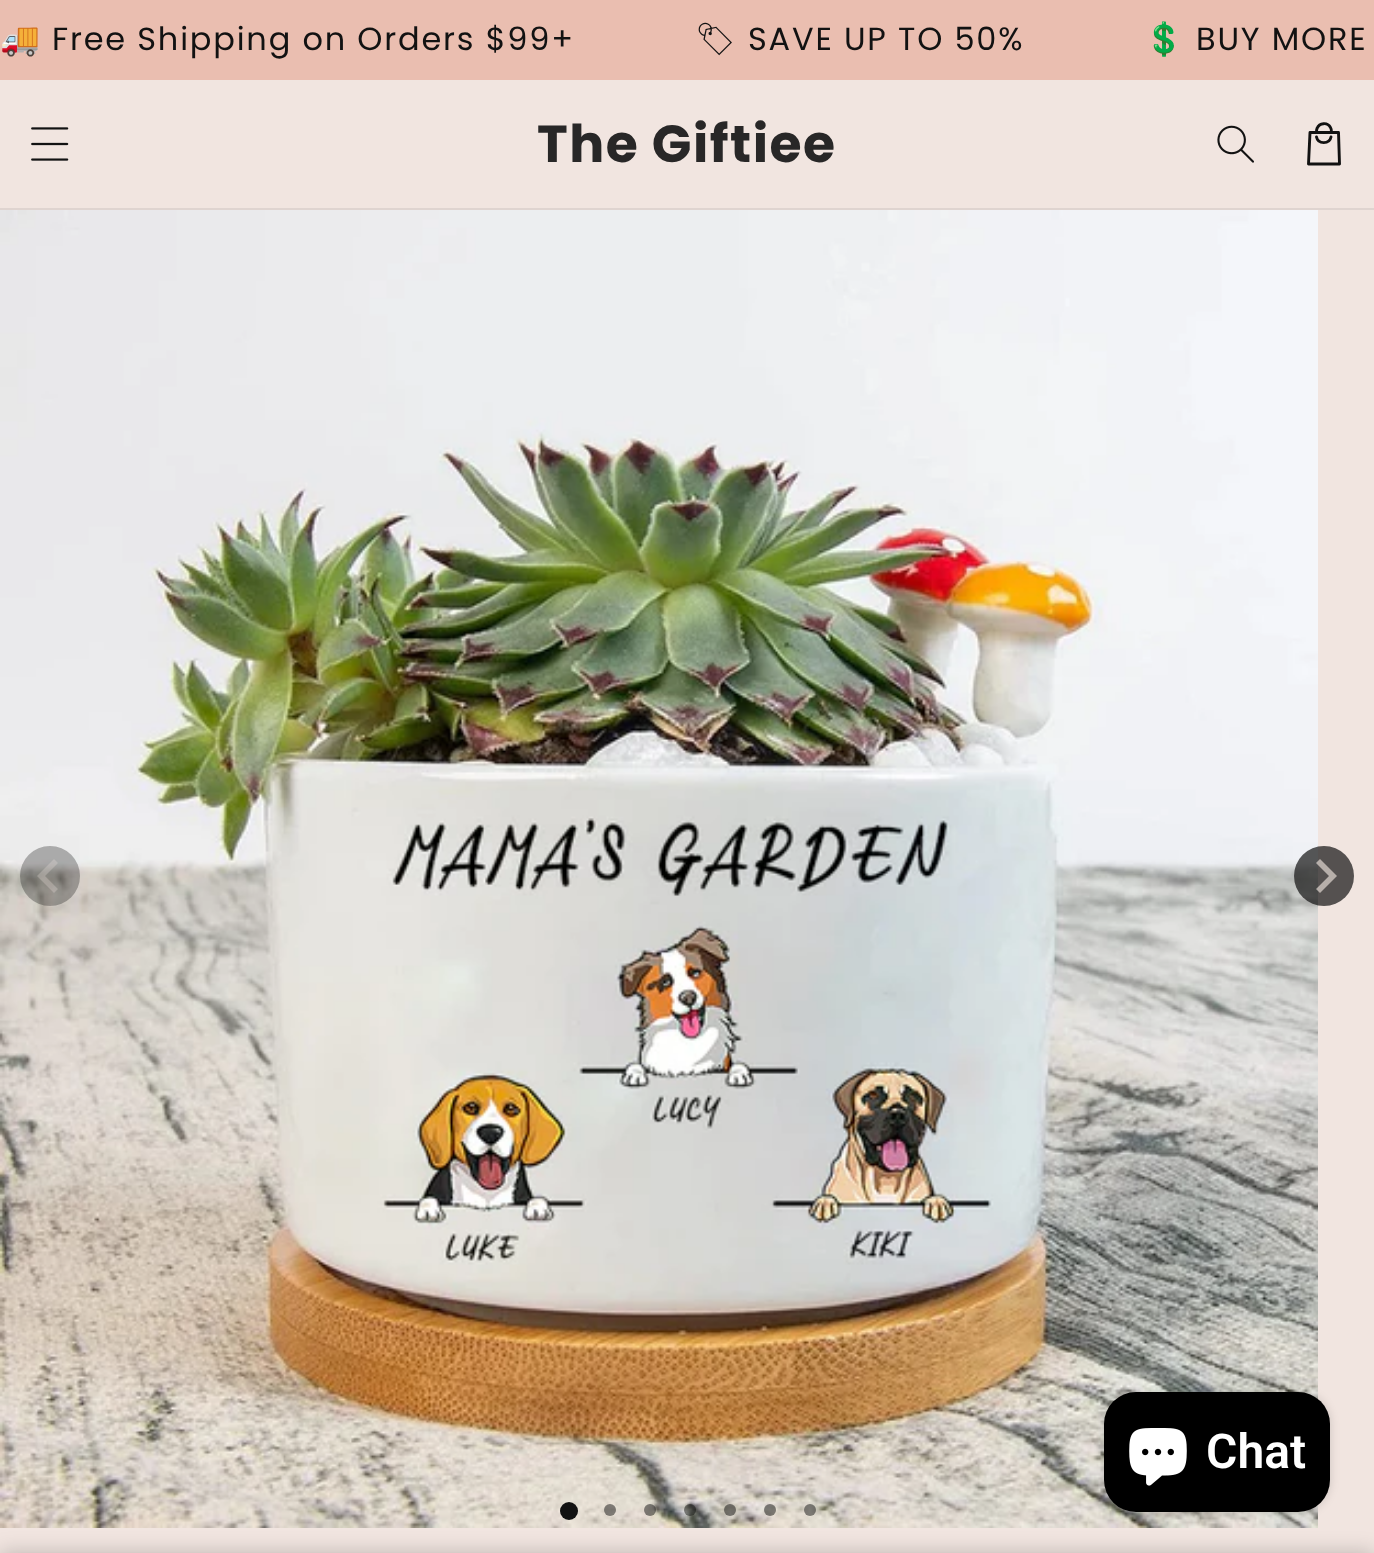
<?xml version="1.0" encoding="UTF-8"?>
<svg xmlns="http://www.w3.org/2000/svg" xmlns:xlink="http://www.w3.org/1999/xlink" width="1374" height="1553">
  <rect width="100%" height="100%" fill="#f1e5e0" />
  <rect width="1374" height="80" fill="#eabeb0" />
  <rect y="208" width="1374" height="2" fill="#dfd4d0" />
  <image x="31" y="127" width="38" height="34" xlink:href="image1.png" />
  <image x="1217" y="125" width="37" height="38" xlink:href="image2.png" />
  <path d="M 1310 132.5 h 28.5 l 1 31.5 h -31 z m 6.5 0 c 0 -1.5 0 -3 0.5 -4 c 2.5 -6 10.5 -6.5 13.5 -1 c 1 1.5 1 3 1 5 m -15 4.5 c 1.5 7.5 13 7.5 14.5 0" fill="none" stroke="#121212" stroke-width="2.9" stroke-linecap="round" stroke-linejoin="round" />
  <image x="0" y="210" width="1318" height="1318" xlink:href="image3.png" />
  <circle cx="50" cy="876" r="30" fill="#121212" fill-opacity="0.3" />
  <path d="M 54 859 l 4 4 l -13 13 l 13 13 l -4 4 l -17 -17 z" fill="#f1e5e0" fill-opacity="0.27" />
  <circle cx="1324" cy="876" r="30" fill="#121212" fill-opacity="0.7" />
  <path d="M 1320 859 l -4 4 l 13 13 l -13 13 l 4 4 l 17 -17 z" fill="#f1e5e0" fill-opacity="0.63" />
  <circle cx="569" cy="1511" r="9" fill="#121212" />
  <circle cx="610" cy="1510" r="6" fill="#121212" fill-opacity="0.5" />
  <circle cx="650" cy="1510" r="6" fill="#121212" fill-opacity="0.5" />
  <circle cx="690" cy="1510" r="6" fill="#121212" fill-opacity="0.5" />
  <circle cx="730" cy="1510" r="6" fill="#121212" fill-opacity="0.5" />
  <circle cx="770" cy="1510" r="6" fill="#121212" fill-opacity="0.5" />
  <circle cx="810" cy="1510" r="6" fill="#121212" fill-opacity="0.5" />
  <rect y="1552" width="1374" height="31" fill="#000000" fill-opacity="0.2" filter="blur(10px)" />
  <rect x="1104" y="1392" width="226" height="120" rx="32" fill="#000000" fill-opacity="0.15" filter="blur(5px)" />
  <rect x="1104" y="1392" width="226" height="120" rx="32" fill="#000000" />
  <image x="1129" y="1428" width="58" height="58" xlink:href="image4.png" />
  <text x="0" y="50" style="font-family: Noto Color Emoji; font-size: 32px; letter-spacing: 1.8px; fill: #121212">🚚</text>
  <text x="52" y="50" style="font-family: Poppins; font-size: 32px; letter-spacing: 1.8px; fill: #121212">Free Shipping on Orders $99+</text>
  <text x="695" y="50" style="font-family: Noto Emoji; font-size: 32px; letter-spacing: 1.8px; fill: #121212">🏷</text>
  <text x="748" y="50" style="font-family: Poppins; font-size: 32px; letter-spacing: 1.8px; fill: #121212">SAVE UP TO 50%</text>
  <text x="1144" y="50" style="font-family: Noto Color Emoji; font-size: 32px; letter-spacing: 1.8px; fill: #121212">💲</text>
  <text x="1196" y="50" style="font-family: Poppins; font-size: 32px; letter-spacing: 1.8px; fill: #121212">BUY MORE</text>
  <text x="537" y="162" style="font-family: Poppins; font-size: 52px; font-weight: bold; letter-spacing: 1.5px; fill: #282727">The Giftiee</text>
  <text x="1206" y="1468" style="font-family: Roboto; font-size: 48px; font-weight: 600; fill: #ffffff">Chat</text>
</svg>
